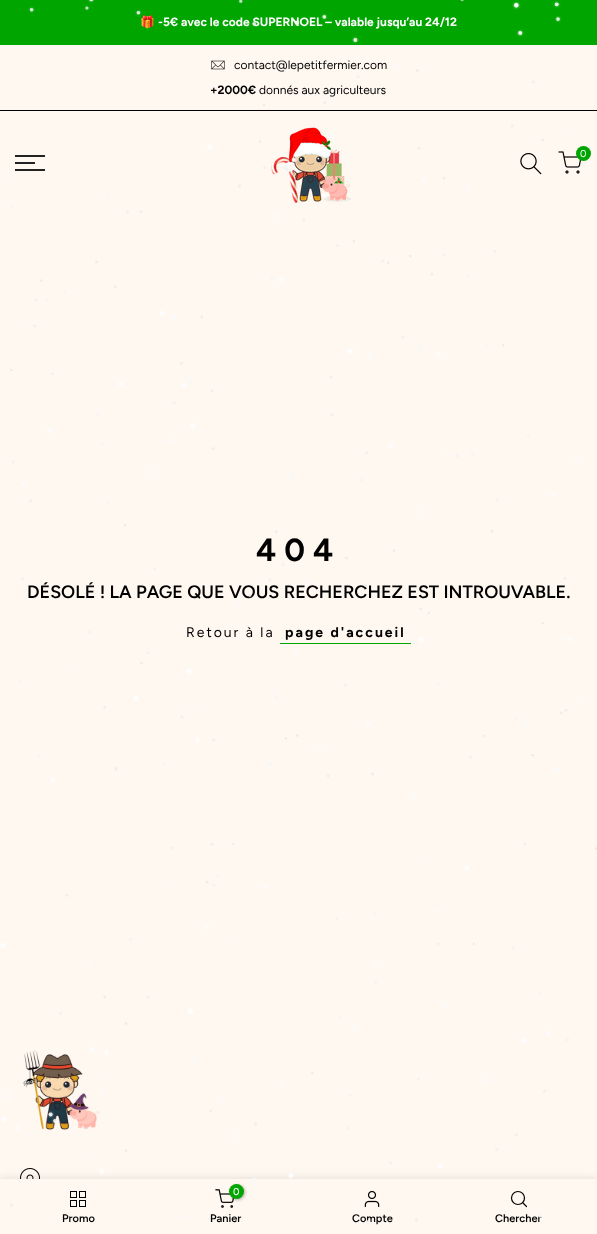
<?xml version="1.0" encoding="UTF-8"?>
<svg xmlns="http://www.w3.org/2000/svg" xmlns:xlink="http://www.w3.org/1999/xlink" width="597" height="1234">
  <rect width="100%" height="100%" fill="#fff8f0" />
  <rect width="597" height="45" fill="#00a500" />
  <rect y="110" width="597" height="1" fill="#000000" />
  <image x="211" y="60" width="14" height="10" xlink:href="image2.png" />
  <image x="271" y="127" width="80" height="76" xlink:href="image3.png" />
  <image x="520" y="153" width="22" height="22" xlink:href="image4.png" />
  <image x="558" y="151" width="23" height="23" xlink:href="image5.png" />
  <circle cx="583.5" cy="153.5" r="7.5" fill="#00a500" />
  <rect x="15" y="155" width="30" height="2" fill="#222222" />
  <rect x="15" y="162" width="20" height="2" fill="#222222" />
  <rect x="15" y="169" width="30" height="2" fill="#222222" />
  <rect x="280" y="643" width="131" height="1" fill="#00a500" />
  <image x="23" y="1050" width="77" height="80" xlink:href="image6.png" />
  <image x="20" y="1168" width="20" height="11" xlink:href="image7.png" />
  <rect y="1179" width="597" height="55" fill="#000000" fill-opacity="0.12" filter="blur(4.5px)" />
  <rect y="1179" width="597" height="55" fill="#fff8f0" />
  <image x="70" y="1191" width="16" height="16" xlink:href="image8.png" />
  <image x="215" y="1189" width="19" height="19" xlink:href="image9.png" />
  <rect x="230" y="1185" width="15" height="15" rx="7.5" fill="#000000" fill-opacity="0.3" filter="blur(1.5px)" />
  <circle cx="236.5" cy="1191.5" r="7.5" fill="#00a500" />
  <image x="364" y="1190" width="16" height="18" xlink:href="image10.png" />
  <circle cx="518" cy="1198" r="6.5" fill="none" stroke="#000000" stroke-width="1.2" />
  <path d="M 526.5 1206.5 l -3.5 -3.5" fill="none" stroke="#000000" stroke-width="1.2" stroke-linecap="round" stroke-linejoin="round" />
  <text x="140" y="26" style="font-family: Noto Color Emoji; font-size: 12px; font-weight: bold; fill: #ffffff">🎁</text>
  <text x="158" y="26" style="font-family: Figtree; font-size: 12px; font-weight: bold; fill: #ffffff">-5€ avec le code SUPERNOEL – valable jusqu’au 24/12</text>
  <text x="234" y="69" style="font-family: Figtree; font-size: 12px; fill: #000000">contact@lepetitfermier.com</text>
  <text x="210" y="94" style="font-family: Figtree; font-size: 12px; font-weight: bold; fill: #000000">+2000€</text>
  <text x="259" y="94" style="font-family: Figtree; font-size: 12px; fill: #000000">donnés aux agriculteurs</text>
  <text x="580" y="157" style="font-family: Figtree; font-size: 10px; fill: #ffffff">0</text>
  <text x="256" y="561" style="font-family: Figtree; font-size: 32px; font-weight: bold; letter-spacing: 8px; fill: #000000">404</text>
  <text x="27" y="598" style="font-family: Figtree; font-size: 18px; font-weight: 600; fill: #000000">DÉSOLÉ ! LA PAGE QUE VOUS RECHERCHEZ EST INTROUVABLE.</text>
  <text x="186" y="637" style="font-family: Figtree; font-size: 14px; letter-spacing: 2px; fill: #000000">Retour à la</text>
  <text x="285" y="637" style="font-family: Figtree; font-size: 14px; font-weight: bold; letter-spacing: 2px; fill: #000000">page d'accueil</text>
  <text x="62" y="1222" style="font-family: Figtree; font-size: 11px; font-weight: 600; fill: #000000">Promo</text>
  <text x="233" y="1195" style="font-family: Figtree; font-size: 10px; font-weight: 500; fill: #ffffff">0</text>
  <text x="210" y="1222" style="font-family: Figtree; font-size: 11px; font-weight: 600; fill: #000000">Panier</text>
  <text x="352" y="1222" style="font-family: Figtree; font-size: 11px; font-weight: 600; fill: #000000">Compte</text>
  <text x="495" y="1222" style="font-family: Figtree; font-size: 11px; font-weight: 600; fill: #000000">Chercher</text>
  <image x="0" y="0" width="597" height="1234" xlink:href="image1.png" />
</svg>
